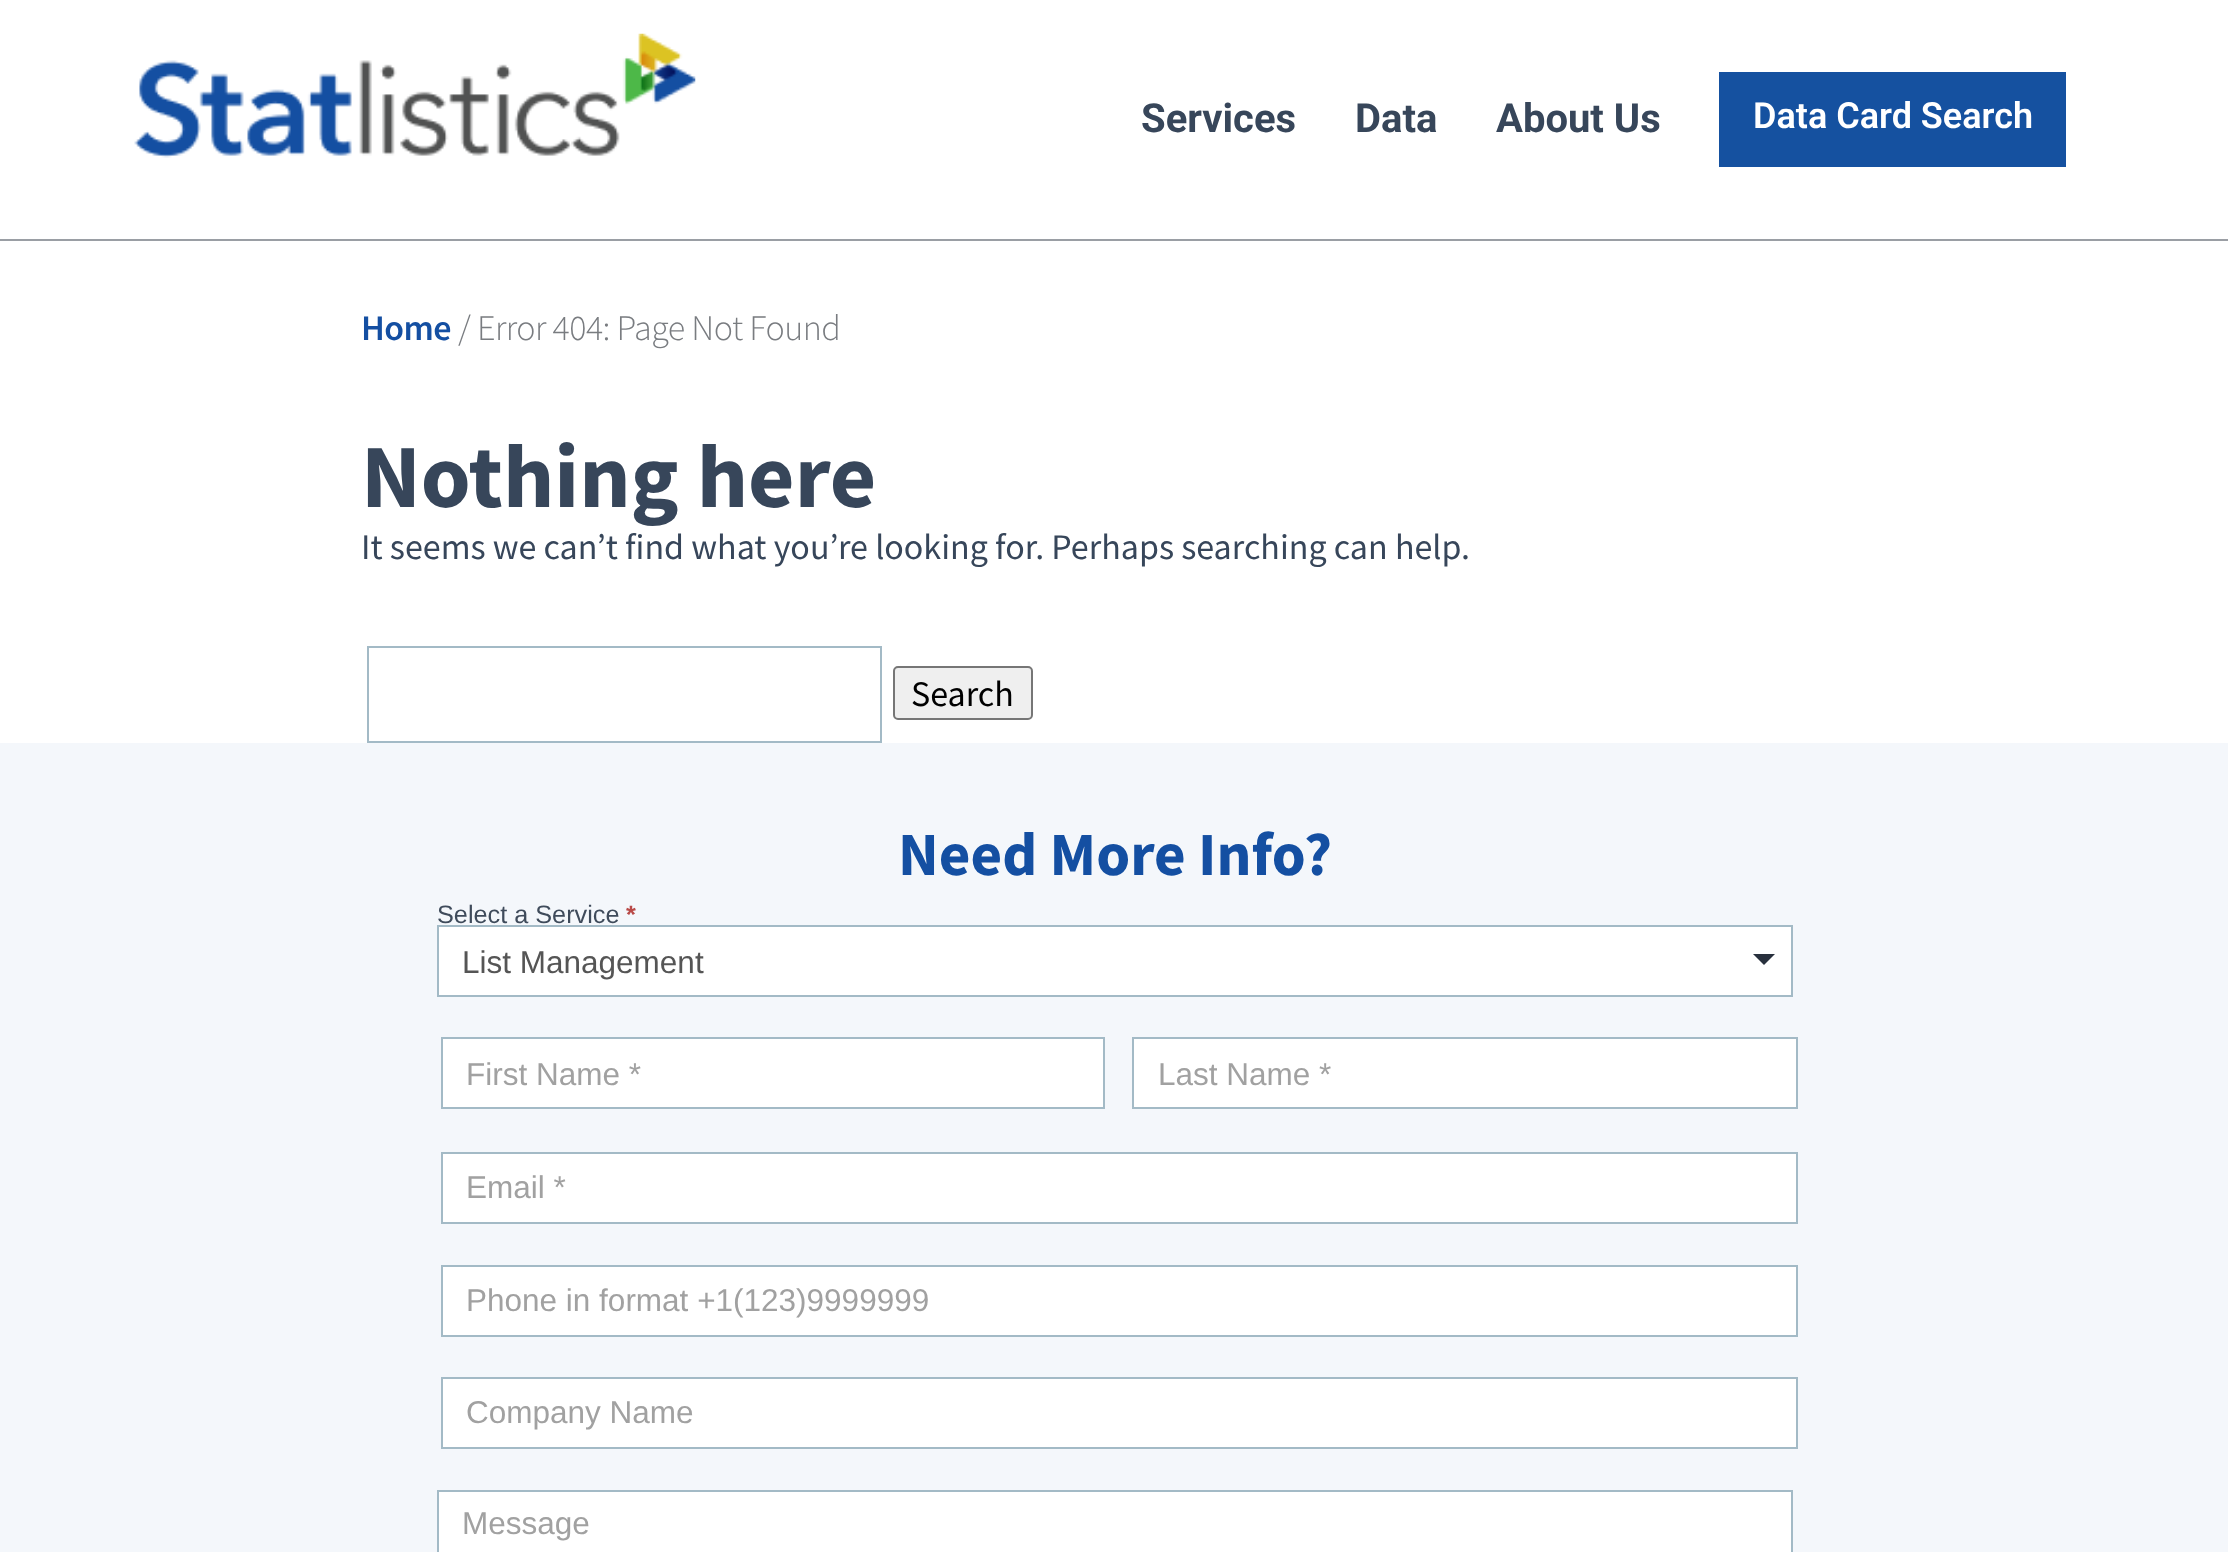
<?xml version="1.0" encoding="UTF-8"?>
<svg xmlns="http://www.w3.org/2000/svg" xmlns:xlink="http://www.w3.org/1999/xlink" width="2228" height="1552">
  <rect width="100%" height="100%" fill="#ffffff" />
  <image x="134" y="33" width="562" height="125" xlink:href="image1.png" />
  <rect x="1719" y="72" width="347" height="95" fill="#1551a0" />
  <rect y="239" width="2228" height="2" fill="#9a9ea4" />
  <rect x="368" y="647" width="513" height="95" fill="none" stroke="#a3bac6" stroke-width="2" />
  <rect x="894" y="667" width="138" height="52" rx="4" fill="#efefef" stroke="#767676" stroke-width="2" />
  <rect y="743" width="2228" height="809" fill="#f4f7fb" />
  <rect x="439" y="927" width="1352" height="68" fill="#ffffff" />
  <path d="M 1753 954 h 22 l -11 11 z" fill="#28303d" />
  <rect x="438" y="926" width="1354" height="70" fill="none" stroke="#a3bac6" stroke-width="2" />
  <rect x="442" y="1038" width="662" height="70" fill="#ffffff" stroke="#a3bac6" stroke-width="2" />
  <rect x="1133" y="1038" width="664" height="70" fill="#ffffff" stroke="#a3bac6" stroke-width="2" />
  <rect x="442" y="1153" width="1355" height="70" fill="#ffffff" stroke="#a3bac6" stroke-width="2" />
  <rect x="442" y="1266" width="1355" height="70" fill="#ffffff" stroke="#a3bac6" stroke-width="2" />
  <rect x="442" y="1378" width="1355" height="70" fill="#ffffff" stroke="#a3bac6" stroke-width="2" />
  <rect x="438" y="1491" width="1354" height="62" fill="#ffffff" stroke="#a3bac6" stroke-width="2" />
  <text x="1141" y="132" style="font-family: Roboto; font-size: 40px; font-weight: bold; fill: #37465a">Services</text>
  <text x="1355" y="132" style="font-family: Roboto; font-size: 40px; font-weight: bold; fill: #37465a">Data</text>
  <text x="1496" y="132" style="font-family: Roboto; font-size: 40px; font-weight: bold; fill: #37465a">About Us</text>
  <text x="1753" y="128" style="font-family: Roboto; font-size: 36px; font-weight: 600; fill: #ffffff">Data Card Search</text>
  <text x="361" y="340" style="font-family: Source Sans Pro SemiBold; font-size: 36px; font-weight: 600; letter-spacing: -0.55px; fill: #144fa2">Home</text>
  <text x="458" y="340" style="font-family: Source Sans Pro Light; font-size: 36px; font-weight: 300; letter-spacing: -0.55px; fill: #797c80">/ Error 404: Page Not Found</text>
  <text x="361" y="507" style="font-family: Source Sans Pro; font-size: 90px; font-weight: bold; fill: #37465a">Nothing here</text>
  <text x="361" y="559" style="font-family: Source Sans Pro; font-size: 36px; fill: #37465a">It seems we can’t find what you’re looking for. Perhaps searching can help.</text>
  <text x="911" y="706" style="font-family: Source Sans Pro; font-size: 36px; fill: #000000">Search</text>
  <text x="898" y="875" style="font-family: Source Sans Pro; font-size: 61.25px; font-weight: bold; fill: #144fa2">Need More Info?</text>
  <text x="437" y="923" style="font-family: Liberation Sans; font-size: 25.25px; fill: #3f4b5b">Select a Service</text>
  <text x="626" y="923" style="font-family: Liberation Sans; font-size: 25.25px; font-weight: bold; fill: #b94a48">*</text>
  <text x="462" y="973" style="font-family: Liberation Sans; font-size: 31.5px; fill: #555555">List Management</text>
  <text x="466" y="1085" style="font-family: Liberation Sans; font-size: 31.5px; fill: #a1a1a1">First Name *</text>
  <text x="1158" y="1085" style="font-family: Liberation Sans; font-size: 31.5px; fill: #a1a1a1">Last Name *</text>
  <text x="466" y="1198" style="font-family: Liberation Sans; font-size: 31.5px; fill: #a1a1a1">Email *</text>
  <text x="466" y="1311" style="font-family: Liberation Sans; font-size: 31.5px; fill: #a1a1a1">Phone in format +1(123)9999999</text>
  <text x="466" y="1423" style="font-family: Liberation Sans; font-size: 31.5px; fill: #a1a1a1">Company Name</text>
  <text x="462" y="1534" style="font-family: Liberation Sans; font-size: 31.5px; fill: #a1a1a1">Message</text>
</svg>
